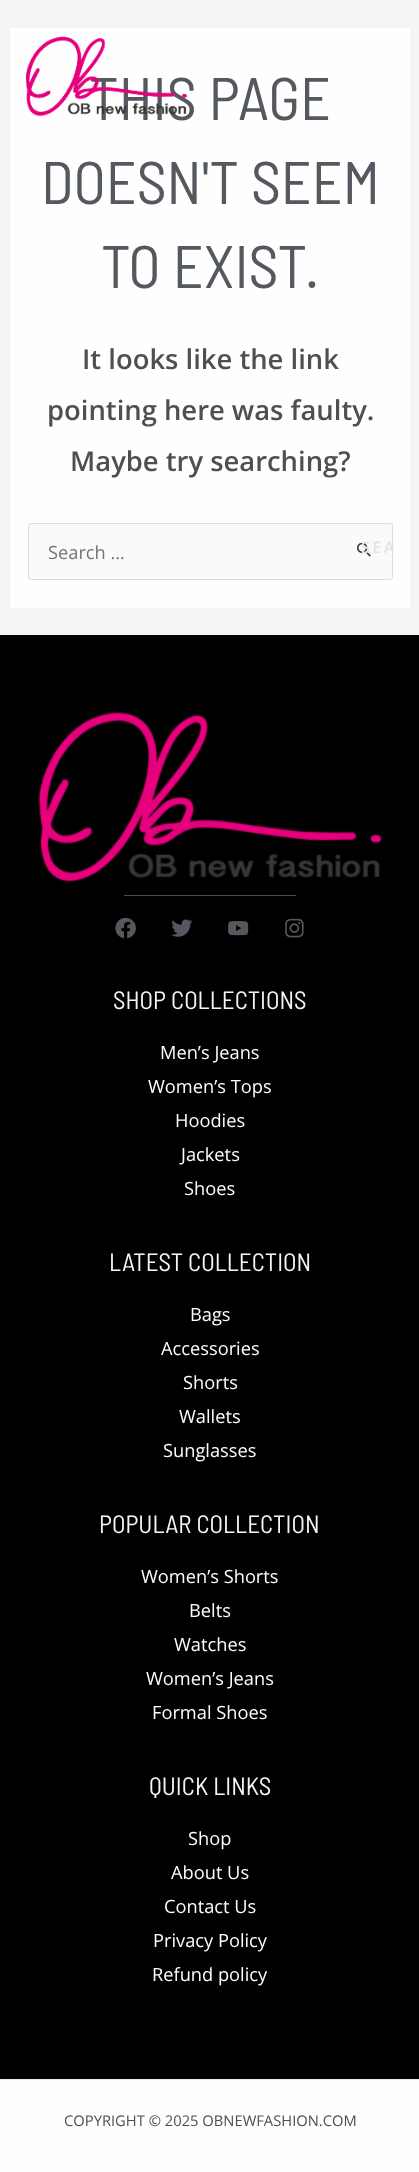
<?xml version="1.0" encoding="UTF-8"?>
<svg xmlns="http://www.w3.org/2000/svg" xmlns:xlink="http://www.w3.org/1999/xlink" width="419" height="2172">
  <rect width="100%" height="100%" fill="#f5f5f5" />
  <rect x="10" y="28" width="400" height="580" fill="#fefefe" />
  <rect x="28.5" y="523.5" width="364" height="56" rx="2" fill="#fafafa" stroke="#dddddd" />
  <image x="357" y="543" width="14" height="14" xlink:href="image2.png" />
  <rect y="635" width="419" height="1444" fill="#000000" />
  <image x="38" y="712" width="344" height="170" xlink:href="image3.png" />
  <rect x="124" y="895" width="172" height="1" fill="#4f4f4f" />
  <image x="115" y="918" width="21" height="21" xlink:href="image4.png" />
  <image x="171" y="919" width="22" height="18" xlink:href="image5.png" />
  <image x="228" y="921" width="21" height="15" xlink:href="image6.png" />
  <image x="285" y="918" width="19" height="20" xlink:href="image7.png" />
  <rect y="2080" width="419" height="92" fill="#fefefe" />
  <rect y="2079" width="419" height="1" fill="#eaeaea" />
  <text x="89" y="120" style="font-family: Barlow Semi Condensed; font-size: 60px; fill: #54595f">THIS PAGE</text>
  <image x="25" y="36" width="163" height="81" xlink:href="image1.png" />
  <text x="41" y="204" style="font-family: Barlow Semi Condensed; font-size: 60px; fill: #54595f">DOESN'T SEEM</text>
  <text x="101" y="288" style="font-family: Barlow Semi Condensed; font-size: 60px; fill: #54595f">TO EXIST.</text>
  <text x="82" y="369" style="font-family: Open Sans; font-size: 27.4px; font-weight: 600; fill: #4f4f4f">It looks like the link</text>
  <text x="47" y="420" style="font-family: Open Sans; font-size: 27.4px; font-weight: 600; fill: #4f4f4f">pointing here was faulty.</text>
  <text x="70" y="471" style="font-family: Open Sans; font-size: 27.4px; font-weight: 600; fill: #4f4f4f">Maybe try searching?</text>
  <text x="48" y="559" style="font-family: Open Sans; font-size: 18.25px; fill: #757575">Search …</text>
  <text x="361" y="553" style="font-family: Open Sans; font-size: 16px; font-weight: 600; letter-spacing: 2.5px; fill: #e4e4e4">SEA</text>
  <text x="113" y="1009" style="font-family: Barlow Semi Condensed; font-size: 25px; fill: #f5f5f5">SHOP COLLECTIONS</text>
  <text x="160" y="1059" style="font-family: Open Sans; font-size: 18.25px; fill: #fefefe">Men’s Jeans</text>
  <text x="148" y="1093" style="font-family: Open Sans; font-size: 18.25px; fill: #fefefe">Women’s Tops</text>
  <text x="175" y="1127" style="font-family: Open Sans; font-size: 18.25px; fill: #fefefe">Hoodies</text>
  <text x="181" y="1161" style="font-family: Open Sans; font-size: 18.25px; fill: #fefefe">Jackets</text>
  <text x="184" y="1195" style="font-family: Open Sans; font-size: 18.25px; fill: #fefefe">Shoes</text>
  <text x="109" y="1271" style="font-family: Barlow Semi Condensed; font-size: 25px; fill: #f5f5f5">LATEST COLLECTION</text>
  <text x="190" y="1321" style="font-family: Open Sans; font-size: 18.25px; fill: #fefefe">Bags</text>
  <text x="161" y="1355" style="font-family: Open Sans; font-size: 18.25px; fill: #fefefe">Accessories</text>
  <text x="183" y="1389" style="font-family: Open Sans; font-size: 18.25px; fill: #fefefe">Shorts</text>
  <text x="179" y="1423" style="font-family: Open Sans; font-size: 18.25px; fill: #fefefe">Wallets</text>
  <text x="163" y="1457" style="font-family: Open Sans; font-size: 18.25px; fill: #fefefe">Sunglasses</text>
  <text x="99" y="1533" style="font-family: Barlow Semi Condensed; font-size: 25px; fill: #f5f5f5">POPULAR COLLECTION</text>
  <text x="141" y="1583" style="font-family: Open Sans; font-size: 18.25px; fill: #fefefe">Women’s Shorts</text>
  <text x="189" y="1617" style="font-family: Open Sans; font-size: 18.25px; fill: #fefefe">Belts</text>
  <text x="174" y="1651" style="font-family: Open Sans; font-size: 18.25px; fill: #fefefe">Watches</text>
  <text x="146" y="1685" style="font-family: Open Sans; font-size: 18.25px; fill: #fefefe">Women’s Jeans</text>
  <text x="152" y="1719" style="font-family: Open Sans; font-size: 18.25px; fill: #fefefe">Formal Shoes</text>
  <text x="149" y="1795" style="font-family: Barlow Semi Condensed; font-size: 25px; fill: #f5f5f5">QUICK LINKS</text>
  <text x="188" y="1845" style="font-family: Open Sans; font-size: 18.25px; fill: #fefefe">Shop</text>
  <text x="171" y="1879" style="font-family: Open Sans; font-size: 18.25px; fill: #fefefe">About Us</text>
  <text x="164" y="1913" style="font-family: Open Sans; font-size: 18.25px; fill: #fefefe">Contact Us</text>
  <text x="153" y="1947" style="font-family: Open Sans; font-size: 18.25px; fill: #fefefe">Privacy Policy</text>
  <text x="152" y="1981" style="font-family: Open Sans; font-size: 18.25px; fill: #fefefe">Refund policy</text>
  <text x="64" y="2126" style="font-family: Open Sans; font-size: 14.75px; fill: #4f4f4f">COPYRIGHT © 2025 OBNEWFASHION.COM</text>
</svg>
